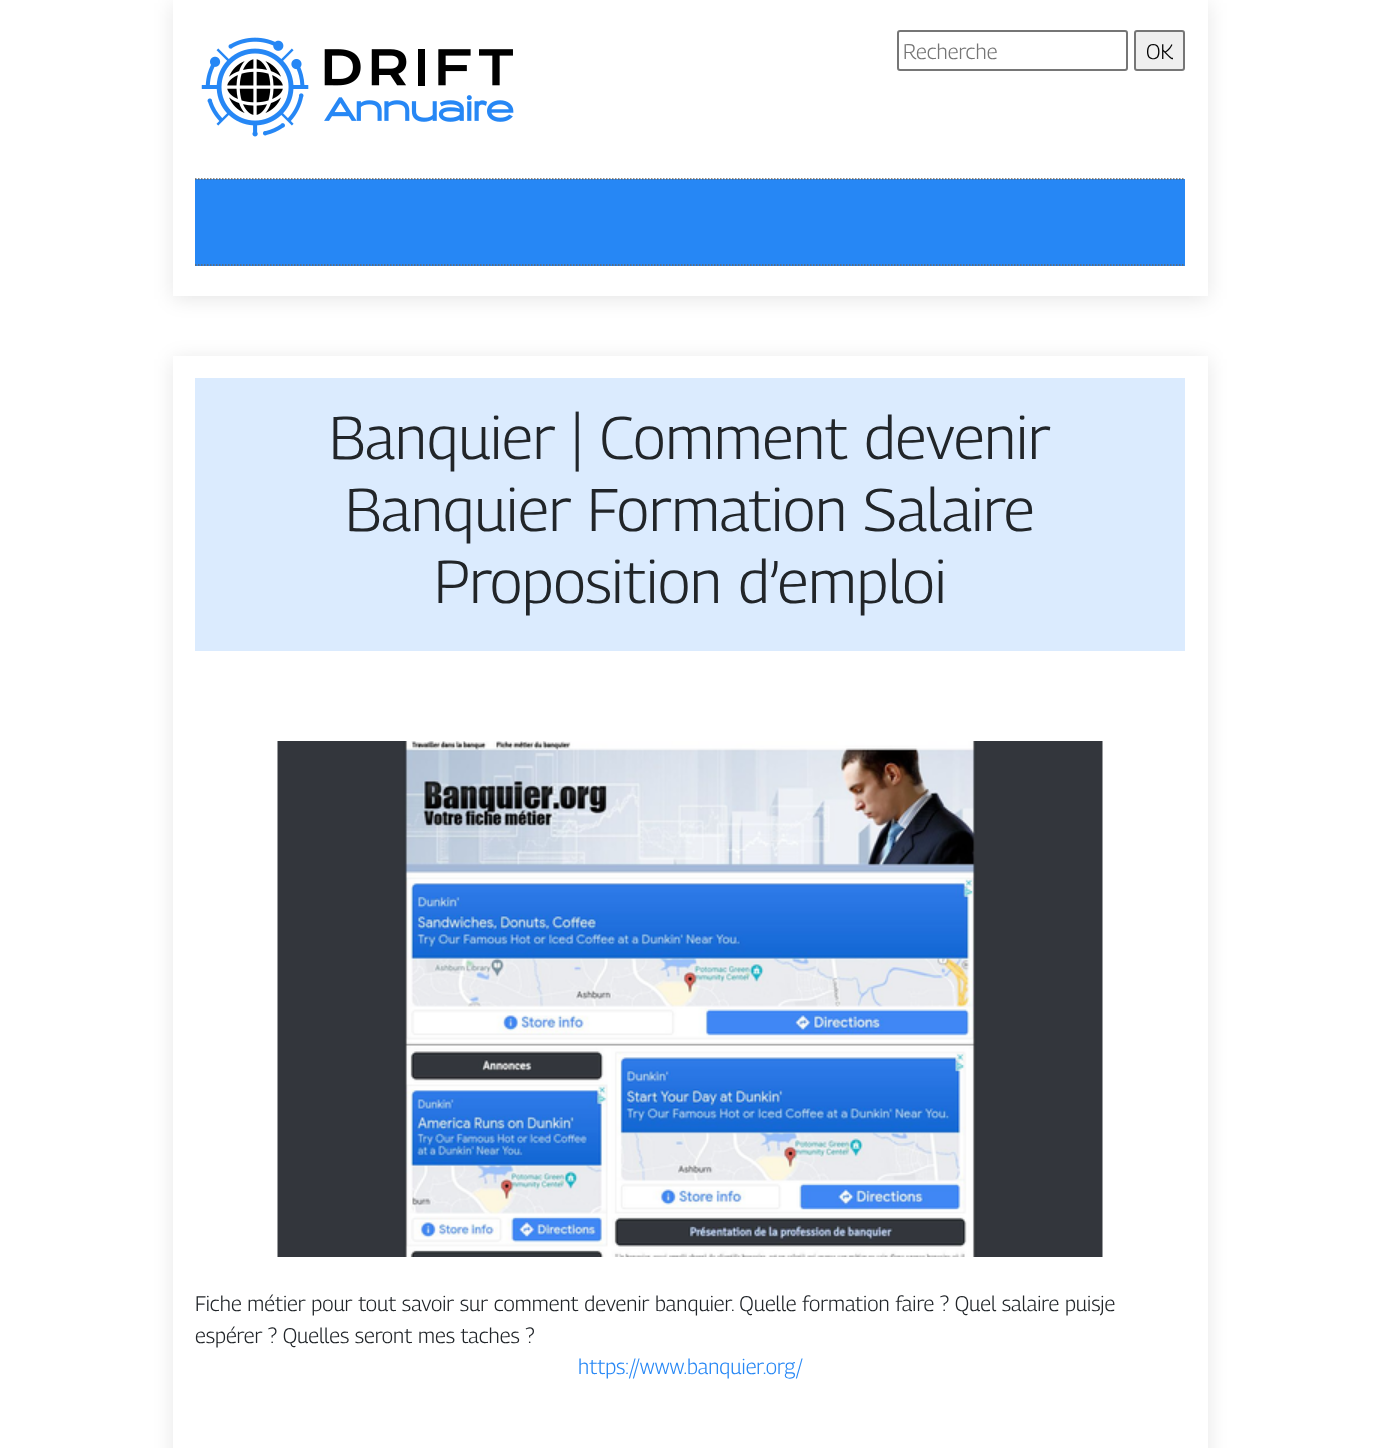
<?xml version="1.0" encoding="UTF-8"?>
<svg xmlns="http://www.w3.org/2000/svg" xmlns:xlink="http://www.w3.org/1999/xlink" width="1379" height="1448">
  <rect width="100%" height="100%" fill="#ffffff" />
  <rect x="173" y="3" width="1035" height="296" fill="#000000" fill-opacity="0.1" filter="blur(10px)" />
  <rect x="173" width="1035" height="296" fill="#ffffff" />
  <image x="201" y="37" width="313" height="100" xlink:href="image1.png" />
  <rect x="898" y="31" width="229" height="39" rx="2" fill="none" stroke="#767676" stroke-width="2" />
  <rect x="1135" y="31" width="49" height="39" rx="2" fill="#efefef" stroke="#767676" stroke-width="2" />
  <rect x="195" y="179" width="990" height="87" fill="#2687f5" />
  <path d="M 195 179 h 990" fill="none" stroke="#666666" stroke-width="1.5" stroke-dasharray="1.5 1.5" />
  <path d="M 195 265 h 990" fill="none" stroke="#666666" stroke-width="1.5" stroke-dasharray="1.5 1.5" />
  <rect x="173" y="359" width="1035" height="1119" fill="#000000" fill-opacity="0.1" filter="blur(10px)" />
  <rect x="173" y="356" width="1035" height="1092" fill="#ffffff" />
  <rect x="195" y="378" width="990" height="273" fill="#dbebfe" />
  <image x="277" y="741" width="826" height="516" xlink:href="image2.png" />
  <text x="903" y="59" style="font-family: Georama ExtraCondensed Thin; font-size: 21px; font-weight: 100; fill: #757575">Recherche</text>
  <text x="1146" y="59" style="font-family: Georama ExtraCondensed Thin; font-size: 21px; font-weight: 100; fill: #000000">OK</text>
  <text x="329" y="459" style="font-family: Georama ExtraCondensed Thin; font-size: 60px; font-weight: 100; fill: #212529">Banquier | Comment devenir</text>
  <text x="345" y="531" style="font-family: Georama ExtraCondensed Thin; font-size: 60px; font-weight: 100; fill: #212529">Banquier Formation Salaire</text>
  <text x="434" y="603" style="font-family: Georama ExtraCondensed Thin; font-size: 60px; font-weight: 100; fill: #212529">Proposition d’emploi</text>
  <text x="195" y="1311" style="font-family: Georama ExtraCondensed Thin; font-size: 21px; font-weight: 100; fill: #212529">Fiche métier pour tout savoir sur comment devenir banquier. Quelle formation faire ? Quel salaire puisje</text>
  <text x="195" y="1343" style="font-family: Georama ExtraCondensed Thin; font-size: 21px; font-weight: 100; fill: #212529">espérer ? Quelles seront mes taches ?</text>
  <text x="578" y="1374" style="font-family: Georama ExtraCondensed Thin; font-size: 21px; font-weight: 100; fill: #2687f5">https://www.banquier.org/</text>
</svg>
